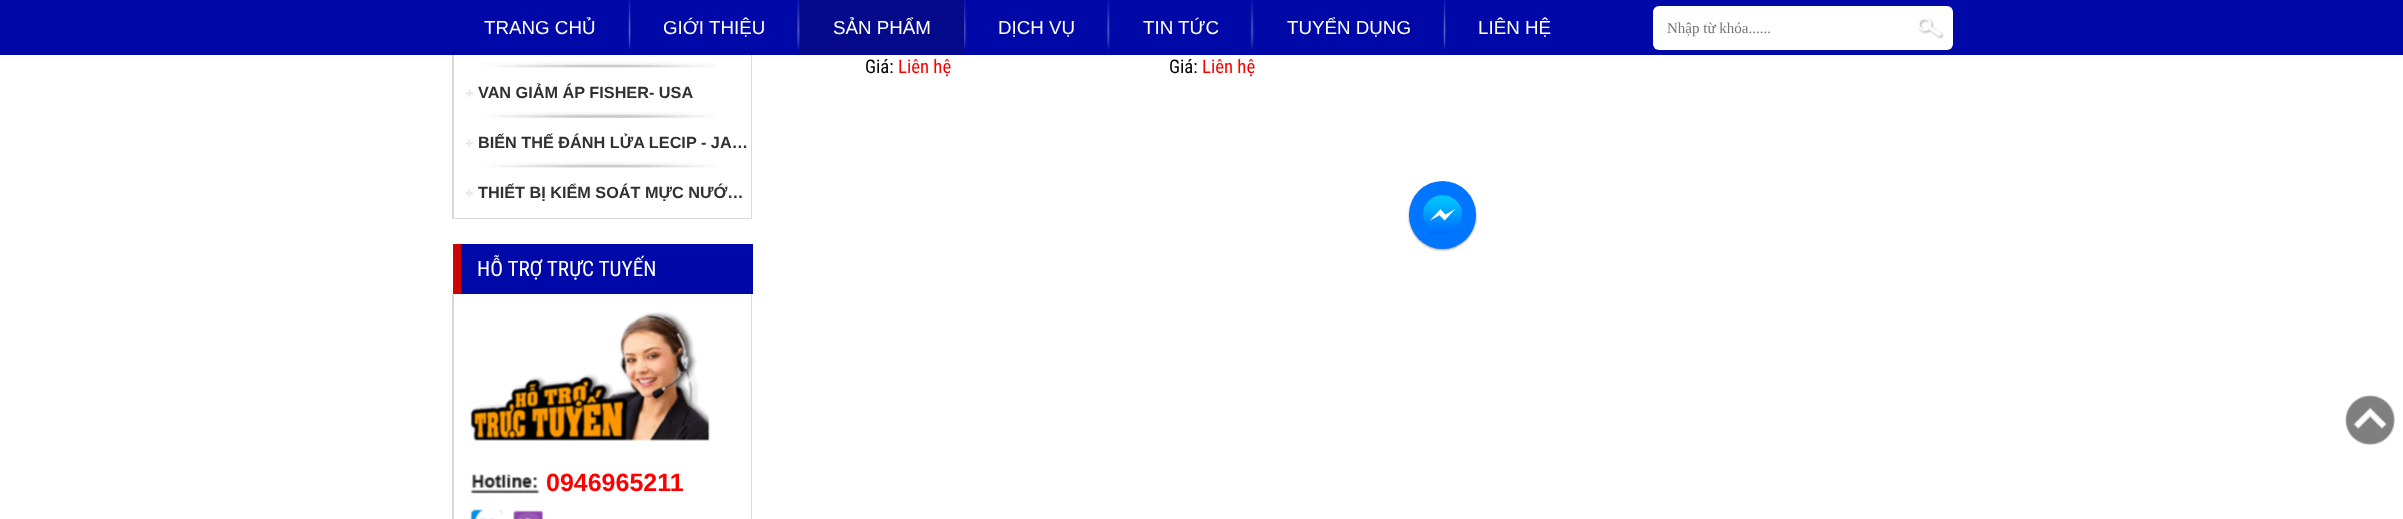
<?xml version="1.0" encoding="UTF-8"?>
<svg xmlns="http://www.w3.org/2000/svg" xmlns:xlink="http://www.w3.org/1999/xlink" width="2403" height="519">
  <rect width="100%" height="100%" fill="#ffffff" />
  <path d="M 752 -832 v 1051 l -1 -1 v -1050 z" fill="#d9d9d9" />
  <path d="M 752 219 h -300 l 2 -1 h 297 z" fill="#808080" fill-opacity="0.3" />
  <path d="M 452 219 v -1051 h 2 v 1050 z" fill="#808080" fill-opacity="0.3" />
  <rect width="2403" height="55" fill="#0008a7" />
  <image x="628" y="0" width="3" height="49" xlink:href="image1.png" />
  <image x="797" y="0" width="3" height="49" xlink:href="image2.png" />
  <rect x="800" width="164" height="55" fill="#040a8a" />
  <image x="964" y="0" width="3" height="49" xlink:href="image3.png" />
  <image x="1107" y="0" width="3" height="49" xlink:href="image2.png" />
  <image x="1250" y="0" width="4" height="49" xlink:href="image4.png" />
  <image x="1443" y="0" width="3" height="49" xlink:href="image1.png" />
  <rect x="1653" y="6" width="300" height="44" rx="6" fill="#ffffff" />
  <image x="1917" y="17" width="27" height="22" xlink:href="image5.png" />
  <image x="483" y="62" width="232" height="6" xlink:href="image6.png" />
  <image x="465" y="89" width="250" height="29" xlink:href="image7.png" />
  <image x="465" y="139" width="250" height="29" xlink:href="image8.png" />
  <image x="465" y="189" width="8" height="8" xlink:href="image9.png" />
  <rect x="461" y="244" width="292" height="50" fill="#0008a7" />
  <rect x="453" y="244" width="8" height="50" fill="#cc0505" />
  <path d="M 752 294 v 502 l -1 -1 v -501 z" fill="#d9d9d9" />
  <path d="M 452 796 v -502 h 2 v 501 z" fill="#d9d9d9" />
  <image x="470" y="312" width="240" height="182" xlink:href="image10.png" />
  <image x="470" y="509" width="33" height="10" xlink:href="image11.png" />
  <image x="513" y="510" width="30" height="9" xlink:href="image12.png" />
  <rect x="1409" y="183" width="67" height="67" rx="33.5" fill="#000000" fill-opacity="0.4" filter="blur(1px)" />
  <rect x="1409" y="181" width="67" height="68" rx="33.5" fill="#0075ff" />
  <image x="1423" y="195" width="40" height="41" xlink:href="image13.png" />
  <image x="2345" y="395" width="50" height="50" xlink:href="image14.png" />
  <text x="484" y="34" style="font-family: Liberation Sans; font-size: 18.75px; fill: #ffffff">TRANG CHỦ</text>
  <text x="663" y="34" style="font-family: Liberation Sans; font-size: 18.75px; fill: #ffffff">GIỚI THIỆU</text>
  <text x="833" y="34" style="font-family: Liberation Sans; font-size: 18.75px; fill: #ffffff">SẢN PHẨM</text>
  <text x="998" y="34" style="font-family: Liberation Sans; font-size: 18.75px; fill: #ffffff">DỊCH VỤ</text>
  <text x="1143" y="34" style="font-family: Liberation Sans; font-size: 18.75px; fill: #ffffff">TIN TỨC</text>
  <text x="1287" y="34" style="font-family: Liberation Sans; font-size: 18.75px; fill: #ffffff">TUYỂN DỤNG</text>
  <text x="1478" y="34" style="font-family: Liberation Sans; font-size: 18.75px; fill: #ffffff">LIÊN HỆ</text>
  <text x="1667" y="33" style="font-family: Liberation Serif; font-size: 15px; fill: #757575">Nhập từ khóa......</text>
  <text x="865" y="73" style="font-family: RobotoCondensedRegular; font-size: 18.75px; fill: #000000">Giá:</text>
  <text x="898" y="73" style="font-family: RobotoCondensedRegular; font-size: 18.75px; fill: #ff0000">Liên hệ</text>
  <text x="1169" y="73" style="font-family: RobotoCondensedRegular; font-size: 18.75px; fill: #000000">Giá:</text>
  <text x="1202" y="73" style="font-family: RobotoCondensedRegular; font-size: 18.75px; fill: #ff0000">Liên hệ</text>
  <text x="478" y="98" style="font-family: Liberation Sans; font-size: 16.25px; font-weight: bold; fill: #313131">VAN GIẢM ÁP FISHER- USA</text>
  <text x="478" y="148" style="font-family: Liberation Sans; font-size: 16.25px; font-weight: bold; fill: #313131">BIẾN THẾ ĐÁNH LỬA LECIP - JA…</text>
  <text x="478" y="198" style="font-family: Liberation Sans; font-size: 16.25px; font-weight: bold; fill: #313131">THIẾT BỊ KIỂM SOÁT MỰC NƯỚ…</text>
  <text x="477" y="276" style="font-family: RobotoCondensedRegular; font-size: 21.25px; fill: #ffffff">HỖ TRỢ TRỰC TUYẾN</text>
  <text x="546" y="491" style="font-family: Liberation Sans; font-size: 25px; font-weight: bold; fill: #ff0000">0946965211</text>
</svg>
